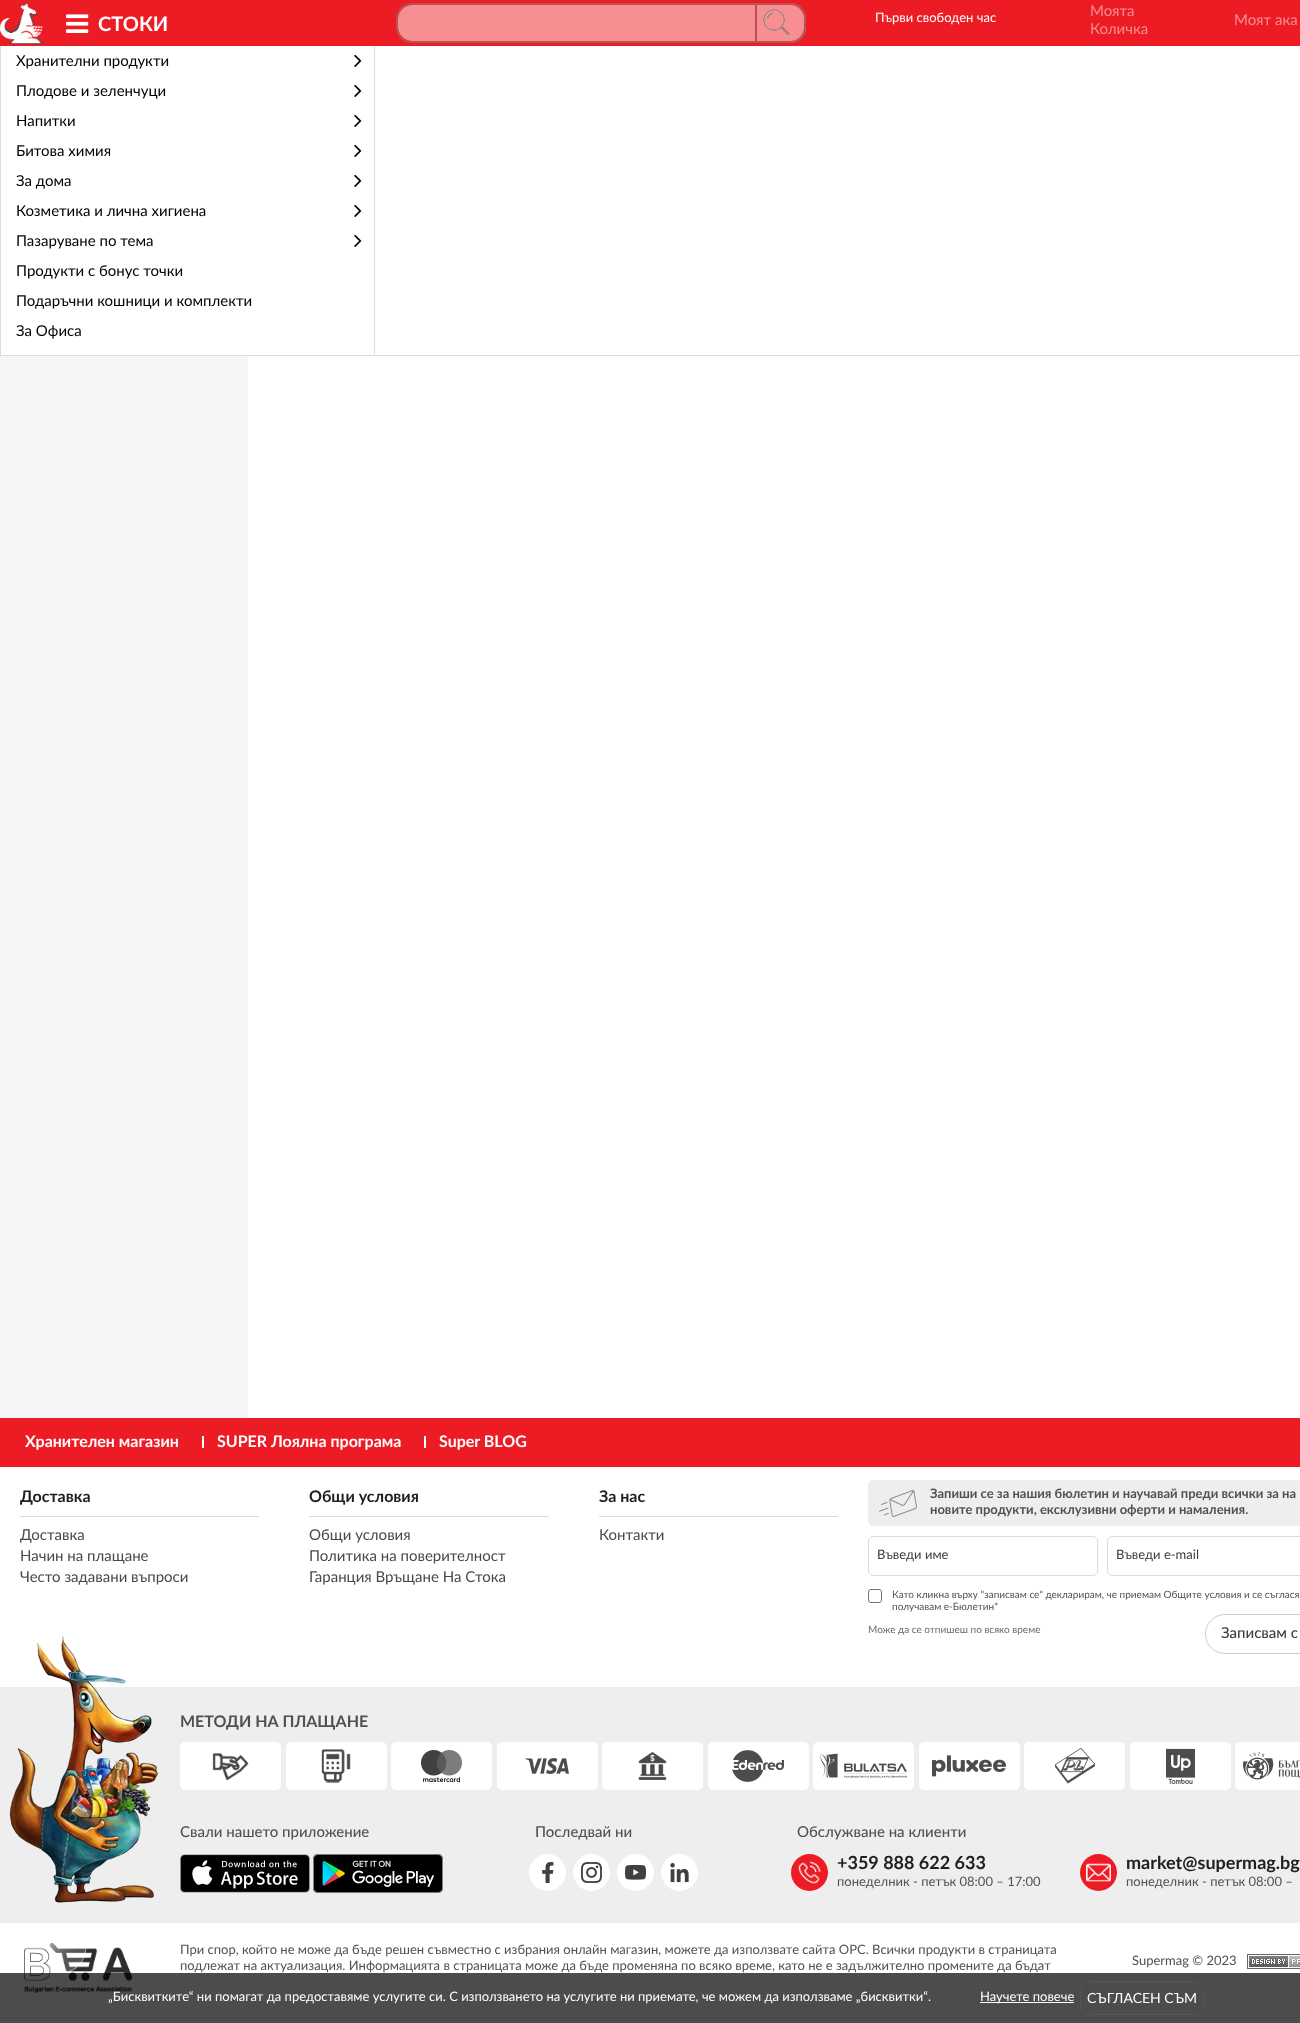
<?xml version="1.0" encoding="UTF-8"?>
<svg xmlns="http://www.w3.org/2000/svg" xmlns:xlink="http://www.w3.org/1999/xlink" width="1300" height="2023">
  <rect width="100%" height="100%" fill="#ffffff" />
  <rect width="1300" height="46" fill="#ed1c24" />
  <image x="0" y="2" width="44" height="42" xlink:href="image1.png" />
  <image x="66" y="14" width="23" height="19" xlink:href="image2.png" />
  <rect y="355" width="1300" height="1" fill="#dddddd" />
  <rect y="46" width="1" height="310" fill="#dddddd" />
  <rect x="374" y="46" width="1" height="310" fill="#dddddd" />
  <image x="354" y="54" width="8" height="13" xlink:href="image3.png" />
  <image x="354" y="84" width="8" height="13" xlink:href="image3.png" />
  <image x="354" y="114" width="8" height="13" xlink:href="image3.png" />
  <image x="354" y="144" width="8" height="13" xlink:href="image3.png" />
  <image x="354" y="174" width="8" height="13" xlink:href="image3.png" />
  <image x="354" y="204" width="8" height="13" xlink:href="image3.png" />
  <image x="354" y="234" width="8" height="13" xlink:href="image3.png" />
  <path d="M 412 5 h 343 v 36 h -343 c -7.5 0 -14 -6.5 -14 -14 v -8 c 0 -7.5 6.5 -14 14 -14 z" fill="#f68e92" />
  <path d="M 412 3 h 343 v 40 h -343 c -9 0 -16 -7 -16 -16 v -8 c 0 -9 7 -16 16 -16 z m 0 2 h 343 v 36 h -343 c -8 0 -14 -6 -14 -14 v -8 c 0 -8 6 -14 14 -14 z" fill="#b85155" fill-rule="evenodd" />
  <path d="M 755 3 h 35 c 9 0 16 7 16 16 v 8 c 0 9 -7 16 -16 16 h -35 z" fill="#f68e92" />
  <image x="763" y="9" width="27" height="27" xlink:href="image4.png" />
  <path d="M 756 4 h 34 c 8.5 0 15 6.5 15 15 v 8 c 0 8.5 -6.5 15 -15 15 h -34 z" fill="none" stroke="#b85155" stroke-width="2" />
  <rect y="356" width="248" height="1062" fill="#f5f5f5" />
  <rect y="1418" width="1300" height="49" fill="#ed1c24" />
  <rect x="202" y="1436" width="2" height="12" fill="#ffffff" />
  <rect x="424" y="1436" width="2" height="12" fill="#ffffff" />
  <rect x="20" y="1516" width="239" height="1" fill="#dbdbdb" />
  <rect x="309" y="1516" width="240" height="1" fill="#dbdbdb" />
  <rect x="599" y="1516" width="239" height="1" fill="#dbdbdb" />
  <rect x="868" y="1480" width="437" height="46" rx="5" fill="#eeeeee" />
  <image x="879" y="1490" width="38" height="27" xlink:href="image5.png" />
  <rect x="868.5" y="1536.5" width="229" height="39" rx="4.5" fill="none" stroke="#dbdbdb" />
  <rect x="1107.5" y="1536.5" width="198" height="39" rx="4.5" fill="none" stroke="#dbdbdb" />
  <rect x="868.5" y="1589.5" width="13" height="13" rx="2.5" fill="none" stroke="#687484" />
  <rect x="1205.5" y="1614.5" width="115" height="39" rx="19.5" fill="none" stroke="#cccccc" />
  <rect y="1687" width="1300" height="236" fill="#eeeeee" />
  <image x="9" y="1636" width="149" height="267" xlink:href="image6.png" />
  <rect x="180" y="1742" width="101" height="48" rx="5" fill="#ffffff" />
  <image x="212" y="1753" width="37" height="28" xlink:href="image7.png" />
  <rect x="286" y="1742" width="101" height="48" rx="5" fill="#ffffff" />
  <image x="321" y="1749" width="30" height="34" xlink:href="image8.png" />
  <rect x="391" y="1742" width="101" height="48" rx="5" fill="#ffffff" />
  <image x="421" y="1750" width="41" height="32" xlink:href="image9.png" />
  <rect x="497" y="1742" width="101" height="48" rx="5" fill="#ffffff" />
  <image x="525" y="1758" width="44" height="16" xlink:href="image10.png" />
  <rect x="602" y="1742" width="101" height="48" rx="5" fill="#ffffff" />
  <image x="638" y="1752" width="29" height="28" xlink:href="image11.png" />
  <rect x="708" y="1742" width="101" height="48" rx="5" fill="#ffffff" />
  <image x="732" y="1750" width="52" height="32" xlink:href="image12.png" />
  <rect x="813" y="1742" width="101" height="48" rx="5" fill="#ffffff" />
  <image x="820" y="1753" width="87" height="25" xlink:href="image13.png" />
  <rect x="919" y="1742" width="101" height="48" rx="5" fill="#ffffff" />
  <image x="932" y="1755" width="74" height="22" xlink:href="image14.png" />
  <rect x="1024" y="1742" width="101" height="48" rx="5" fill="#ffffff" />
  <image x="1055" y="1748" width="40" height="36" xlink:href="image15.png" />
  <rect x="1130" y="1742" width="101" height="48" rx="5" fill="#ffffff" />
  <image x="1166" y="1748" width="29" height="36" xlink:href="image16.png" />
  <rect x="1235" y="1742" width="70" height="48" rx="5" fill="#ffffff" />
  <image x="1243" y="1752" width="57" height="28" xlink:href="image17.png" />
  <image x="180" y="1854" width="130" height="39" xlink:href="image18.png" />
  <image x="313" y="1854" width="130" height="39" xlink:href="image19.png" />
  <circle cx="547.5" cy="1872.5" r="18.5" fill="#ffffff" />
  <image x="542" y="1862" width="12" height="21" xlink:href="image20.png" />
  <circle cx="591.5" cy="1872.5" r="18.5" fill="#ffffff" />
  <image x="581" y="1862" width="21" height="21" xlink:href="image21.png" />
  <circle cx="635.5" cy="1872.5" r="18.5" fill="#ffffff" />
  <image x="625" y="1864" width="21" height="16" xlink:href="image22.png" />
  <circle cx="679.5" cy="1872.5" r="18.5" fill="#ffffff" />
  <image x="670" y="1862" width="19" height="21" xlink:href="image23.png" />
  <circle cx="809.5" cy="1872.5" r="18.5" fill="#ed1c24" />
  <image x="798" y="1861" width="23" height="23" xlink:href="image24.png" />
  <circle cx="1098.5" cy="1872.5" r="18.5" fill="#ed1c24" />
  <image x="1086" y="1863" width="25" height="19" xlink:href="image25.png" />
  <image x="24" y="1943" width="108" height="50" xlink:href="image26.png" />
  <image x="1247" y="1954" width="53" height="15" xlink:href="image27.png" />
  <rect y="1973" width="1300" height="50" fill="#000000" fill-opacity="0.7" />
  <rect x="980" y="2002" width="94" height="1" fill="#ffffff" />
  <rect x="1080.5" y="1981.5" width="123" height="33" rx="9.5" fill="none" stroke="#555557" />
  <text x="98" y="31" style="font-family: Lato; font-size: 20px; font-weight: bold; fill: #ffffff">СТОКИ</text>
  <text x="16" y="66" style="font-family: Lato; font-size: 15px; fill: #000000">Хранителни продукти</text>
  <text x="16" y="96" style="font-family: Lato; font-size: 15px; fill: #000000">Плодове и зеленчуци</text>
  <text x="16" y="126" style="font-family: Lato; font-size: 15px; fill: #000000">Напитки</text>
  <text x="16" y="156" style="font-family: Lato; font-size: 15px; fill: #000000">Битова химия</text>
  <text x="16" y="186" style="font-family: Lato; font-size: 15px; fill: #000000">За дома</text>
  <text x="16" y="216" style="font-family: Lato; font-size: 15px; fill: #000000">Козметика и лична хигиена</text>
  <text x="16" y="246" style="font-family: Lato; font-size: 15px; fill: #000000">Пазаруване по тема</text>
  <text x="16" y="276" style="font-family: Lato; font-size: 15px; fill: #000000">Продукти с бонус точки</text>
  <text x="16" y="306" style="font-family: Lato; font-size: 15px; fill: #000000">Подаръчни кошници и комплекти</text>
  <text x="16" y="336" style="font-family: Lato; font-size: 15px; fill: #000000">За Офиса</text>
  <text x="875" y="22" style="font-family: Lato; font-size: 13px; fill: #ffffff">Първи свободен час</text>
  <text x="1090" y="16" style="font-family: Lato; font-size: 15px; fill: #f68e92">Моята</text>
  <text x="1090" y="34" style="font-family: Lato; font-size: 15px; fill: #f68e92">Количка</text>
  <text x="1234" y="25" style="font-family: Lato; font-size: 15px; fill: #f68e92">Моят ака</text>
  <text x="25" y="1447" style="font-family: Lato; font-size: 16px; font-weight: bold; fill: #ffffff">Хранителен магазин</text>
  <text x="217" y="1447" style="font-family: Lato; font-size: 16px; font-weight: bold; fill: #ffffff">SUPER Лоялна програма</text>
  <text x="439" y="1447" style="font-family: Lato; font-size: 16px; font-weight: bold; fill: #ffffff">Super BLOG</text>
  <text x="20" y="1502" style="font-family: Lato; font-size: 16px; font-weight: bold; fill: #202020">Доставка</text>
  <text x="20" y="1540" style="font-family: Lato; font-size: 15px; fill: #484848">Доставка</text>
  <text x="20" y="1561" style="font-family: Lato; font-size: 15px; fill: #484848">Начин на плащане</text>
  <text x="20" y="1582" style="font-family: Lato; font-size: 15px; fill: #484848">Често задавани въпроси</text>
  <text x="309" y="1502" style="font-family: Lato; font-size: 16px; font-weight: bold; fill: #202020">Общи условия</text>
  <text x="309" y="1540" style="font-family: Lato; font-size: 15px; fill: #484848">Общи условия</text>
  <text x="309" y="1561" style="font-family: Lato; font-size: 15px; fill: #484848">Политика на поверителност</text>
  <text x="309" y="1582" style="font-family: Lato; font-size: 15px; fill: #484848">Гаранция Връщане На Стока</text>
  <text x="599" y="1502" style="font-family: Lato; font-size: 16px; font-weight: bold; fill: #202020">За нас</text>
  <text x="599" y="1540" style="font-family: Lato; font-size: 15px; fill: #484848">Контакти</text>
  <text x="930" y="1498" style="font-family: Lato; font-size: 13px; font-weight: bold; fill: #515151">Запиши се за нашия бюлетин и научавай преди всички за на</text>
  <text x="930" y="1514" style="font-family: Lato; font-size: 13px; font-weight: bold; fill: #515151">новите продукти, ексклузивни оферти и намаления.</text>
  <text x="877" y="1559" style="font-family: Lato; font-size: 13px; fill: #3c3c3c">Въведи име</text>
  <text x="1116" y="1559" style="font-family: Lato; font-size: 13px; fill: #3c3c3c">Въведи e-mail</text>
  <text x="892" y="1598" style="font-family: Lato; font-size: 10px; fill: #515151">Като кликна върху "записвам се" декларирам, че приемам Общите условия и се съглася</text>
  <text x="892" y="1610" style="font-family: Lato; font-size: 10px; fill: #515151">получавам е-Бюлетин*</text>
  <text x="868" y="1633" style="font-family: Lato; font-size: 10px; fill: #6a6969">Може да се отпишеш по всяко време</text>
  <text x="1221" y="1638" style="font-family: Lato; font-size: 15px; font-weight: 500; fill: #3c3c3c">Записвам с</text>
  <text x="180" y="1727" style="font-family: Lato; font-size: 16px; font-weight: bold; fill: #515151">МЕТОДИ НА ПЛАЩАНЕ</text>
  <text x="180" y="1837" style="font-family: Lato; font-size: 15px; font-weight: 500; fill: #515151">Свали нашето приложение</text>
  <text x="535" y="1837" style="font-family: Lato; font-size: 15px; font-weight: 500; fill: #515151">Последвай ни</text>
  <text x="797" y="1837" style="font-family: Lato; font-size: 15px; font-weight: 500; fill: #515151">Обслужване на клиенти</text>
  <text x="837" y="1869" style="font-family: Lato; font-size: 18px; font-weight: bold; fill: #202020">+359 888 622 633</text>
  <text x="837" y="1886" style="font-family: Lato; font-size: 13px; fill: #515151">понеделник - петък 08:00 – 17:00</text>
  <text x="1126" y="1869" style="font-family: Lato; font-size: 18px; font-weight: bold; fill: #202020">market@supermag.bg</text>
  <text x="1126" y="1886" style="font-family: Lato; font-size: 13px; fill: #515151">понеделник - петък 08:00 –</text>
  <text x="180" y="1954" style="font-family: Lato; font-size: 13px; fill: #515151">При спор, който не може да бъде решен съвместно с избрания онлайн магазин, можете да използвате сайта ОРС. Всички продукти в страницата</text>
  <text x="180" y="1970" style="font-family: Lato; font-size: 13px; fill: #515151">подлежат на актуализация. Информацията в страницата може да бъде променяна по всяко време, като не е задължително промените да бъдат</text>
  <text x="1132" y="1965" style="font-family: Lato; font-size: 13px; fill: #515151">Supermag © 2023</text>
  <text x="108" y="2001" style="font-family: Lato; font-size: 13px; fill: #ffffff">„Бисквитките“ ни помагат да предоставяме услугите си. С използването на услугите ни приемате, че можем да използваме „бисквитки“.</text>
  <text x="980" y="2001" style="font-family: Lato; font-size: 13px; fill: #ffffff">Научете повече</text>
  <text x="1087" y="2003" style="font-family: Lato; font-size: 14px; fill: #ffffff">СЪГЛАСЕН СЪМ</text>
</svg>
